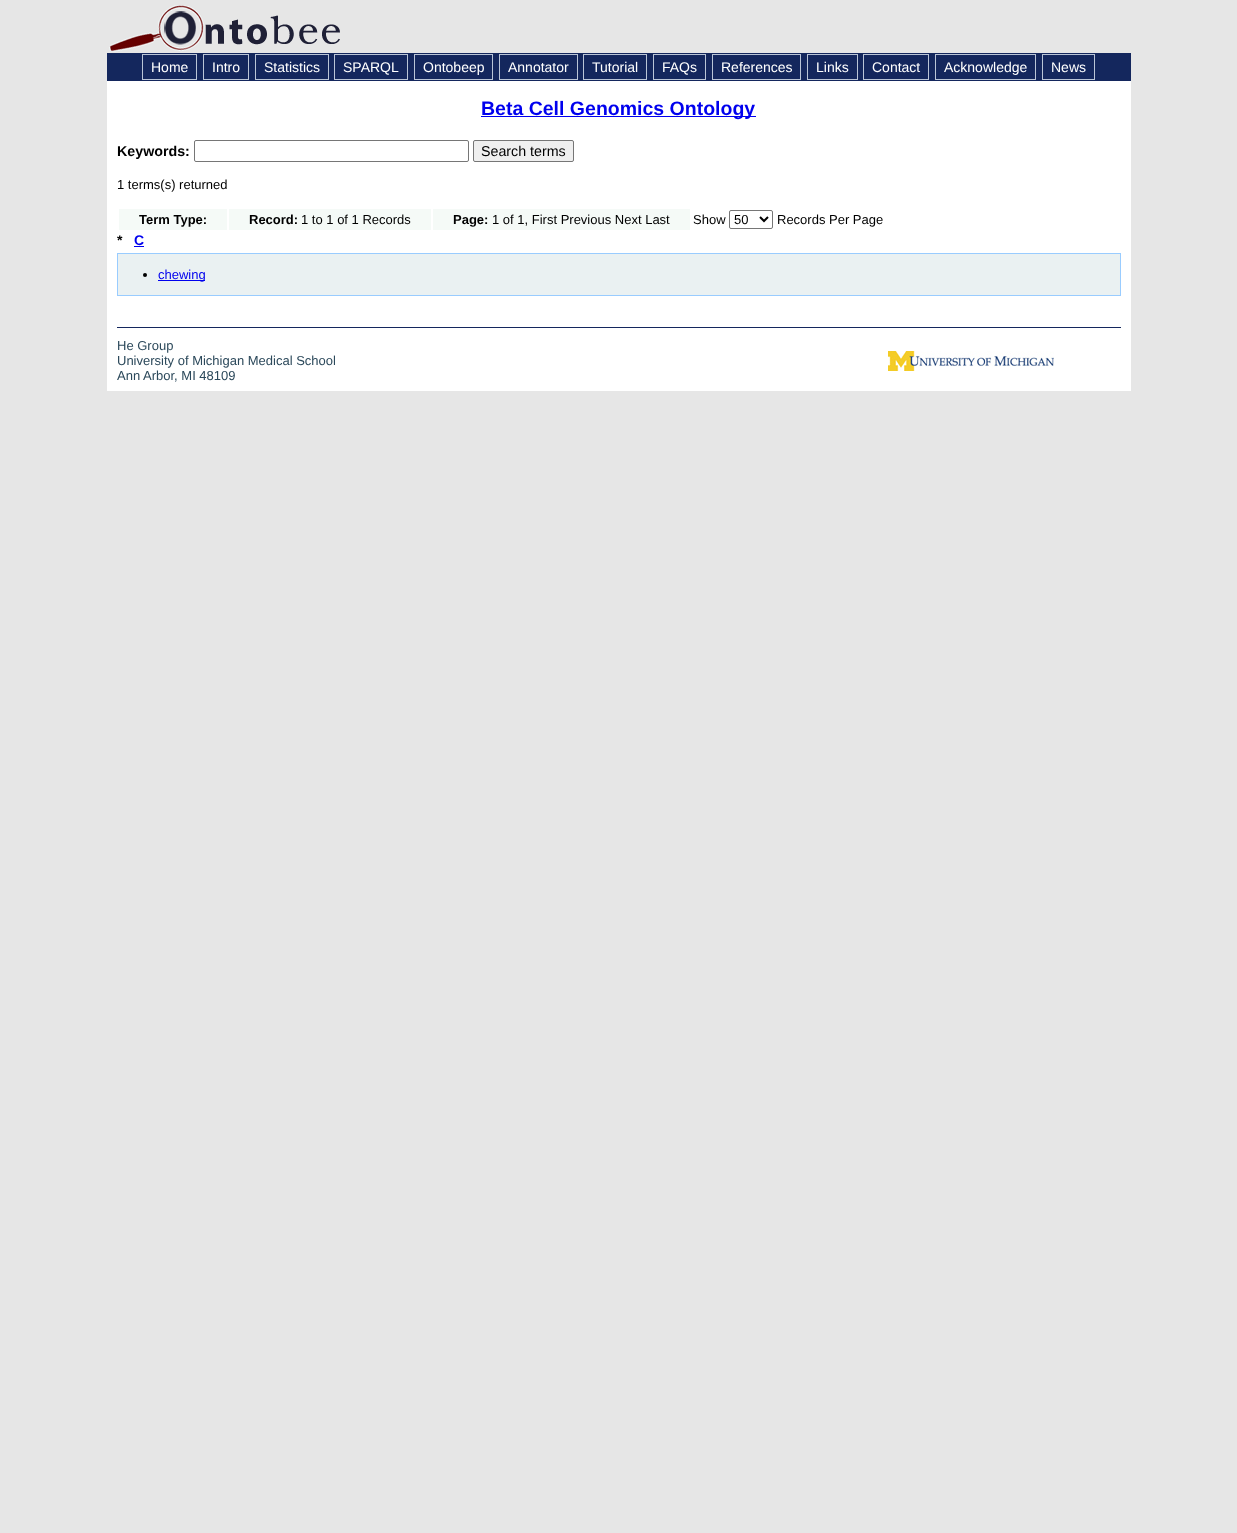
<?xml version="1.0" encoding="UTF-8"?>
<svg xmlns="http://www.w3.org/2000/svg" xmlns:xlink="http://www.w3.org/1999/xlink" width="1237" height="1533">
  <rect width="100%" height="100%" fill="#e6e6e6" />
  <image x="109" y="5" width="231" height="47" xlink:href="image1.png" />
  <rect x="107" y="53" width="1024" height="28" fill="#14275d" />
  <rect x="142.5" y="54.5" width="54" height="25" fill="none" stroke="#bac5d7" />
  <rect x="203.5" y="54.5" width="45" height="25" fill="none" stroke="#bac5d7" />
  <rect x="255.5" y="54.5" width="73" height="25" fill="none" stroke="#bac5d7" />
  <rect x="334.5" y="54.5" width="73" height="25" fill="none" stroke="#bac5d7" />
  <rect x="414.5" y="54.5" width="78" height="25" fill="none" stroke="#bac5d7" />
  <rect x="499.5" y="54.5" width="78" height="25" fill="none" stroke="#bac5d7" />
  <rect x="583.5" y="54.5" width="63" height="25" fill="none" stroke="#bac5d7" />
  <rect x="653.5" y="54.5" width="52" height="25" fill="none" stroke="#bac5d7" />
  <rect x="712.5" y="54.5" width="88" height="25" fill="none" stroke="#bac5d7" />
  <rect x="807.5" y="54.5" width="50" height="25" fill="none" stroke="#bac5d7" />
  <rect x="863.5" y="54.5" width="65" height="25" fill="none" stroke="#bac5d7" />
  <rect x="935.5" y="54.5" width="100" height="25" fill="none" stroke="#bac5d7" />
  <rect x="1042.5" y="54.5" width="52" height="25" fill="none" stroke="#bac5d7" />
  <rect x="107" y="81" width="1024" height="310" fill="#ffffff" />
  <rect x="481" y="116" width="275" height="1" fill="#0000ee" />
  <rect x="194.5" y="140.5" width="274" height="21" rx="1.5" fill="none" stroke="#767676" />
  <rect x="473.5" y="140.5" width="100" height="21" rx="1.5" fill="#efefef" stroke="#767676" />
  <rect x="119" y="209" width="108" height="21" fill="#f5faf7" />
  <rect x="229" y="209" width="202" height="21" fill="#f5faf7" />
  <rect x="433" y="209" width="257" height="21" fill="#f5faf7" />
  <rect x="729.5" y="210.5" width="43" height="18" rx="1.5" fill="none" stroke="#767676" />
  <path d="M 760 217 l 4 4 l 4 -4" fill="none" stroke="#000000" stroke-width="2" />
  <rect x="134" y="246" width="10" height="1" fill="#0000ee" />
  <rect x="117.5" y="253.5" width="1003" height="42" fill="#eaf1f2" stroke="#99ccff" />
  <circle cx="145" cy="275" r="2" fill="#000000" />
  <rect x="158" y="280" width="47" height="1" fill="#0000ee" />
  <rect x="117" y="327" width="1004" height="1" fill="#14275d" />
  <image x="888" y="351" width="166" height="20" xlink:href="image2.png" />
  <text x="151" y="72" style="font-family: Liberation Sans; font-size: 14px; fill: #ffffff">Home</text>
  <text x="212" y="72" style="font-family: Liberation Sans; font-size: 14px; fill: #ffffff">Intro</text>
  <text x="264" y="72" style="font-family: Liberation Sans; font-size: 14px; fill: #ffffff">Statistics</text>
  <text x="343" y="72" style="font-family: Liberation Sans; font-size: 14px; fill: #ffffff">SPARQL</text>
  <text x="423" y="72" style="font-family: Liberation Sans; font-size: 14px; fill: #ffffff">Ontobeep</text>
  <text x="508" y="72" style="font-family: Liberation Sans; font-size: 14px; fill: #ffffff">Annotator</text>
  <text x="592" y="72" style="font-family: Liberation Sans; font-size: 14px; fill: #ffffff">Tutorial</text>
  <text x="662" y="72" style="font-family: Liberation Sans; font-size: 14px; fill: #ffffff">FAQs</text>
  <text x="721" y="72" style="font-family: Liberation Sans; font-size: 14px; fill: #ffffff">References</text>
  <text x="816" y="72" style="font-family: Liberation Sans; font-size: 14px; fill: #ffffff">Links</text>
  <text x="872" y="72" style="font-family: Liberation Sans; font-size: 14px; fill: #ffffff">Contact</text>
  <text x="944" y="72" style="font-family: Liberation Sans; font-size: 14px; fill: #ffffff">Acknowledge</text>
  <text x="1051" y="72" style="font-family: Liberation Sans; font-size: 14px; fill: #ffffff">News</text>
  <text x="481" y="115" style="font-family: Liberation Sans; font-size: 19.5px; font-weight: bold; fill: #0000ee">Beta Cell Genomics Ontology</text>
  <text x="117" y="156" style="font-family: Liberation Sans; font-size: 14.25px; font-weight: bold; fill: #000000">Keywords:</text>
  <text x="481" y="156" style="font-family: Liberation Sans; font-size: 14.25px; fill: #000000">Search terms</text>
  <text x="117" y="189" style="font-family: Liberation Sans; font-size: 13px; fill: #000000">1 terms(s) returned</text>
  <text x="139" y="224" style="font-family: Liberation Sans; font-size: 13px; font-weight: bold; fill: #000000">Term Type:</text>
  <text x="249" y="224" style="font-family: Liberation Sans; font-size: 13px; font-weight: bold; fill: #000000">Record:</text>
  <text x="301" y="224" style="font-family: Liberation Sans; font-size: 13px; fill: #000000">1 to 1 of 1 Records</text>
  <text x="453" y="224" style="font-family: Liberation Sans; font-size: 13px; font-weight: bold; fill: #000000">Page:</text>
  <text x="492" y="224" style="font-family: Liberation Sans; font-size: 13px; fill: #000000">1 of 1, First Previous Next Last</text>
  <text x="693" y="224" style="font-family: Liberation Sans; font-size: 13px; fill: #000000">Show</text>
  <text x="734" y="224" style="font-family: Liberation Sans; font-size: 13px; fill: #000000">50</text>
  <text x="777" y="224" style="font-family: Liberation Sans; font-size: 13px; fill: #000000">Records Per Page</text>
  <text x="117" y="245" style="font-family: Liberation Sans; font-size: 14px; font-weight: bold; fill: #000000">*</text>
  <text x="134" y="245" style="font-family: Liberation Sans; font-size: 14px; font-weight: bold; fill: #0000ee">C</text>
  <text x="158" y="279" style="font-family: Liberation Sans; font-size: 13px; fill: #0000ee">chewing</text>
  <text x="117" y="350" style="font-family: Liberation Sans; font-size: 13px; fill: #2c495b">He Group</text>
  <text x="117" y="365" style="font-family: Liberation Sans; font-size: 13px; fill: #2c495b">University of Michigan Medical School</text>
  <text x="117" y="380" style="font-family: Liberation Sans; font-size: 13px; fill: #2c495b">Ann Arbor, MI 48109</text>
</svg>
